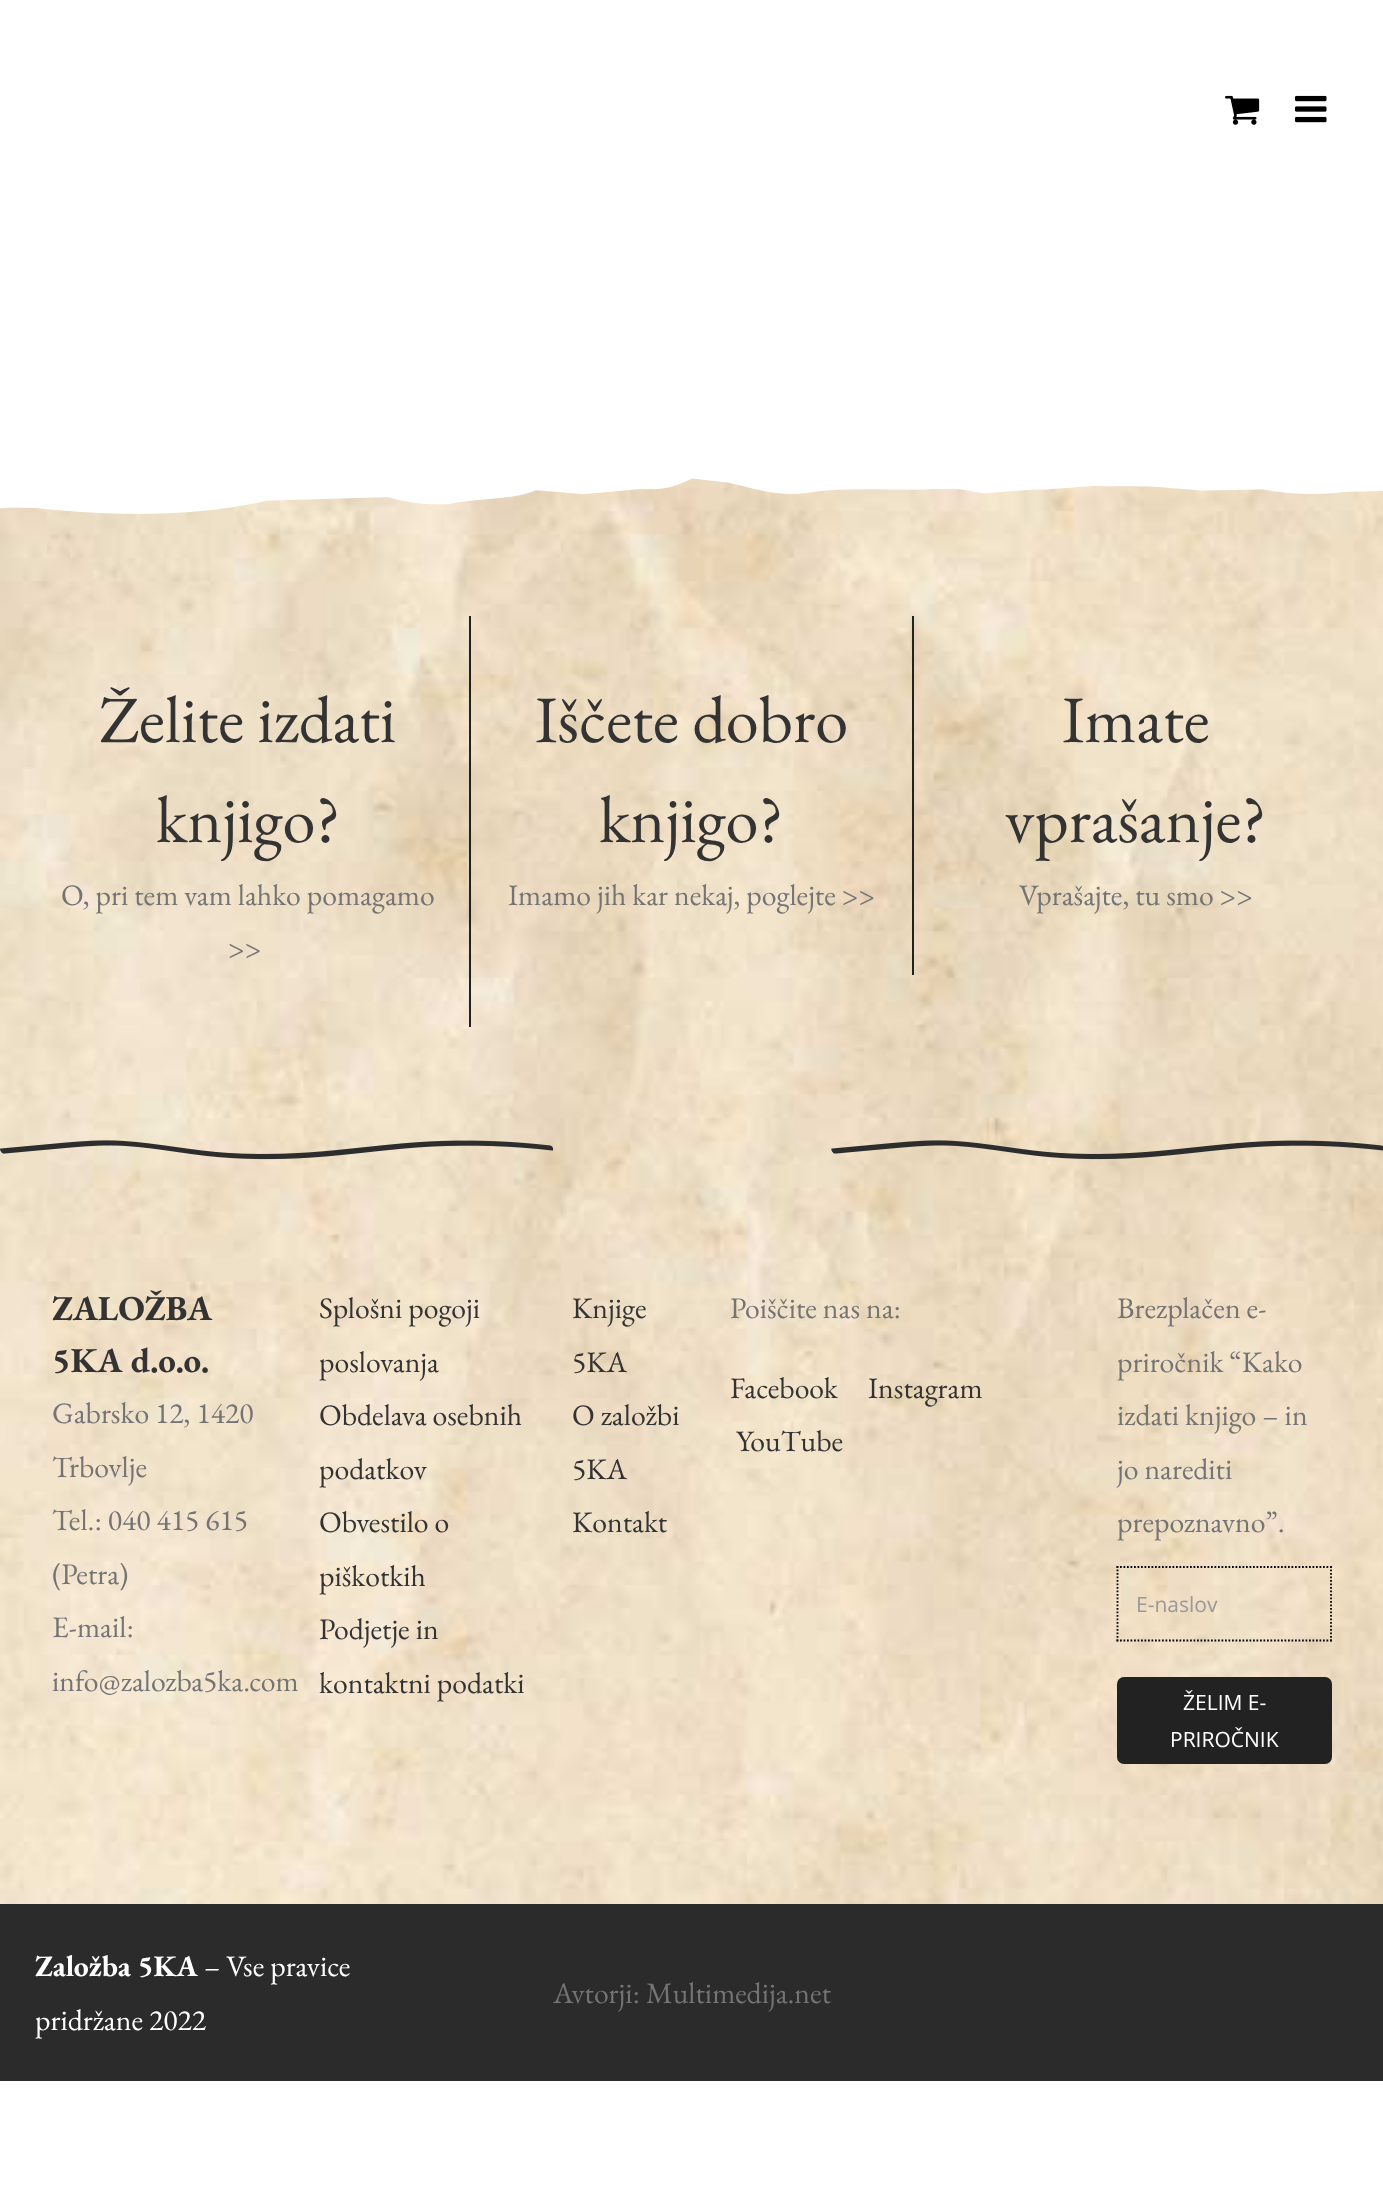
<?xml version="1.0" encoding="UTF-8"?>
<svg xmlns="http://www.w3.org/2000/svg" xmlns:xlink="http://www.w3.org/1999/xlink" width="1383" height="2210">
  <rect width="100%" height="100%" fill="#ffffff" />
  <image x="1225" y="95" width="35" height="30" xlink:href="image1.png" />
  <image x="1295" y="95" width="32" height="28" xlink:href="image2.png" />
  <image x="0" y="478" width="1383" height="1426" xlink:href="image3.png" />
  <image x="0" y="441" width="1383" height="73" xlink:href="image4.png" />
  <rect x="469" y="616" width="2" height="411" fill="#222222" />
  <rect x="912" y="616" width="2" height="359" fill="#222222" />
  <image x="0" y="1140" width="553" height="20" xlink:href="image5.png" />
  <image x="831" y="1140" width="552" height="20" xlink:href="image6.png" />
  <path d="M 1116.5 1567 h 215.5" fill="none" stroke="#000000" stroke-width="1.8" stroke-dasharray="1.75 1.75" />
  <path d="M 1331 1566 v 75.5" fill="none" stroke="#000000" stroke-width="1.8" stroke-dasharray="1.75 1.75" />
  <path d="M 1116.5 1640.5 h 215.5" fill="none" stroke="#000000" stroke-width="1.8" stroke-dasharray="1.75 1.75" />
  <path d="M 1117.5 1566 v 75.5" fill="none" stroke="#000000" stroke-width="1.8" stroke-dasharray="1.75 1.75" />
  <rect x="1117" y="1677" width="215" height="87" rx="7" fill="#222222" />
  <rect y="1904" width="1383" height="177" fill="#2b2b2b" />
  <text x="99" y="742" style="font-family: EB Garamond; font-size: 66.5px; fill: #333333">Želite izdati</text>
  <text x="156" y="842" style="font-family: EB Garamond; font-size: 66.5px; fill: #333333">knjigo?</text>
  <text x="61" y="905" style="font-family: EB Garamond; font-size: 29.75px; fill: #747474">O, pri tem vam lahko pomagamo</text>
  <text x="228" y="958" style="font-family: EB Garamond; font-size: 29.75px; fill: #747474">&gt;&gt;</text>
  <text x="535" y="742" style="font-family: EB Garamond; font-size: 66.5px; fill: #333333">Iščete dobro</text>
  <text x="599" y="842" style="font-family: EB Garamond; font-size: 66.5px; fill: #333333">knjigo?</text>
  <text x="508" y="905" style="font-family: EB Garamond; font-size: 29.75px; fill: #747474">Imamo jih kar nekaj, poglejte &gt;&gt;</text>
  <text x="1062" y="742" style="font-family: EB Garamond; font-size: 66.5px; fill: #333333">Imate</text>
  <text x="1005" y="842" style="font-family: EB Garamond; font-size: 66.5px; fill: #333333">vprašanje?</text>
  <text x="1019" y="905" style="font-family: EB Garamond; font-size: 29.75px; fill: #747474">Vprašajte, tu smo &gt;&gt;</text>
  <text x="52" y="1320" style="font-family: EB Garamond; font-size: 35px; font-weight: bold; fill: #333333">ZALOŽBA</text>
  <text x="52" y="1372" style="font-family: EB Garamond; font-size: 35px; font-weight: bold; fill: #333333">5KA d.o.o.</text>
  <text x="52" y="1423" style="font-family: EB Garamond; font-size: 29.75px; fill: #747474">Gabrsko 12, 1420</text>
  <text x="52" y="1477" style="font-family: EB Garamond; font-size: 29.75px; fill: #747474">Trbovlje</text>
  <text x="52" y="1530" style="font-family: EB Garamond; font-size: 29.75px; fill: #747474">Tel.: 040 415 615</text>
  <text x="52" y="1584" style="font-family: EB Garamond; font-size: 29.75px; fill: #747474">(Petra)</text>
  <text x="52" y="1637" style="font-family: EB Garamond; font-size: 29.75px; fill: #747474">E-mail:</text>
  <text x="52" y="1691" style="font-family: EB Garamond; font-size: 29.75px; fill: #747474">info@zalozba5ka.com</text>
  <text x="319" y="1318" style="font-family: EB Garamond; font-size: 29.75px; fill: #333333">Splošni pogoji</text>
  <text x="319" y="1372" style="font-family: EB Garamond; font-size: 29.75px; fill: #333333">poslovanja</text>
  <text x="319" y="1425" style="font-family: EB Garamond; font-size: 29.75px; fill: #333333">Obdelava osebnih</text>
  <text x="319" y="1479" style="font-family: EB Garamond; font-size: 29.75px; fill: #333333">podatkov</text>
  <text x="319" y="1532" style="font-family: EB Garamond; font-size: 29.75px; fill: #333333">Obvestilo o</text>
  <text x="319" y="1586" style="font-family: EB Garamond; font-size: 29.75px; fill: #333333">piškotkih</text>
  <text x="319" y="1639" style="font-family: EB Garamond; font-size: 29.75px; fill: #333333">Podjetje in</text>
  <text x="319" y="1693" style="font-family: EB Garamond; font-size: 29.75px; fill: #333333">kontaktni podatki</text>
  <text x="572" y="1318" style="font-family: EB Garamond; font-size: 29.75px; fill: #333333">Knjige</text>
  <text x="572" y="1372" style="font-family: EB Garamond; font-size: 29.75px; fill: #333333">5KA</text>
  <text x="572" y="1425" style="font-family: EB Garamond; font-size: 29.75px; fill: #333333">O založbi</text>
  <text x="572" y="1479" style="font-family: EB Garamond; font-size: 29.75px; fill: #333333">5KA</text>
  <text x="572" y="1532" style="font-family: EB Garamond; font-size: 29.75px; fill: #333333">Kontakt</text>
  <text x="730" y="1318" style="font-family: EB Garamond; font-size: 29.75px; fill: #747474">Poiščite nas na:</text>
  <text x="730" y="1398" style="font-family: EB Garamond; font-size: 29.75px; fill: #333333">Facebook</text>
  <text x="868" y="1398" style="font-family: EB Garamond; font-size: 29.75px; fill: #333333">Instagram</text>
  <text x="736" y="1451" style="font-family: EB Garamond; font-size: 29.75px; fill: #333333">YouTube</text>
  <text x="1117" y="1318" style="font-family: EB Garamond; font-size: 29.75px; fill: #747474">Brezplačen e-</text>
  <text x="1117" y="1372" style="font-family: EB Garamond; font-size: 29.75px; fill: #747474">priročnik “Kako</text>
  <text x="1117" y="1425" style="font-family: EB Garamond; font-size: 29.75px; fill: #747474">izdati knjigo – in</text>
  <text x="1117" y="1479" style="font-family: EB Garamond; font-size: 29.75px; fill: #747474">jo narediti</text>
  <text x="1117" y="1532" style="font-family: EB Garamond; font-size: 29.75px; fill: #747474">prepoznavno”.</text>
  <text x="1136" y="1612" style="font-family: Open Sans; font-size: 21px; fill: #999999">E-naslov</text>
  <text x="1183" y="1710" style="font-family: Open Sans; font-size: 21px; fill: #ffffff">ŽELIM E-</text>
  <text x="1170" y="1747" style="font-family: Open Sans; font-size: 21px; fill: #ffffff">PRIROČNIK</text>
  <text x="35" y="1976" style="font-family: EB Garamond; font-size: 29.75px; font-weight: bold; fill: #ffffff">Založba 5KA</text>
  <text x="204" y="1976" style="font-family: EB Garamond; font-size: 29.75px; fill: #ffffff">– Vse pravice</text>
  <text x="35" y="2030" style="font-family: EB Garamond; font-size: 29.75px; fill: #ffffff">pridržane 2022</text>
  <text x="553" y="2003" style="font-family: EB Garamond; font-size: 29.75px; fill: #747474">Avtorji: Multimedija.net</text>
</svg>
